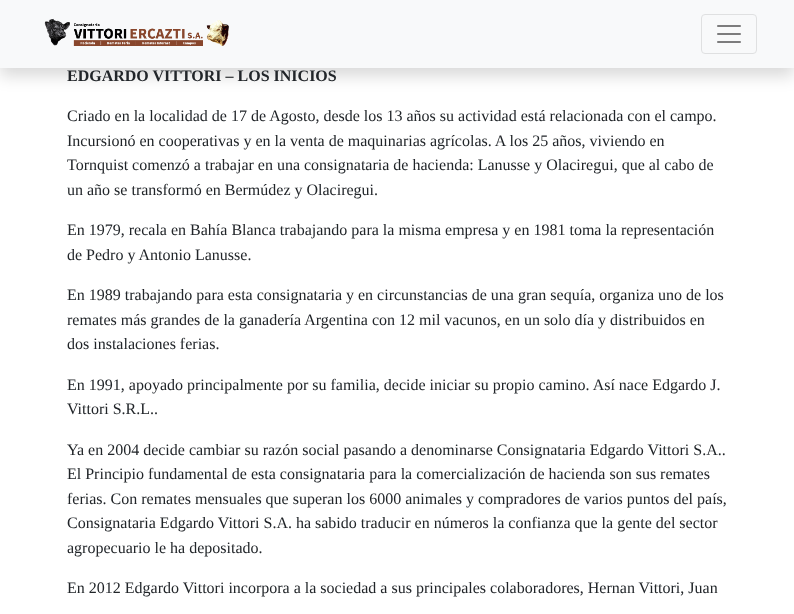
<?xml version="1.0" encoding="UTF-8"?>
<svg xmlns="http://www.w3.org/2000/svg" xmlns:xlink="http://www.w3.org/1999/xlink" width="794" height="614">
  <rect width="100%" height="100%" fill="#ffffff" />
  <rect y="8" width="794" height="68" fill="#000000" fill-opacity="0.15" filter="blur(8px)" />
  <rect width="794" height="68" fill="#f8f9fa" />
  <image x="44" y="18" width="185" height="28" xlink:href="image1.png" />
  <rect x="701.5" y="14.5" width="55" height="39" rx="3.5" fill="none" stroke="#dfe0e1" />
  <image x="717" y="25" width="24" height="18" xlink:href="image2.png" />
  <text x="67" y="81" style="font-family: Liberation Serif; font-size: 16px; font-weight: bold; fill: #212529">EDGARDO VITTORI – LOS INICIOS</text>
  <text x="67" y="121" style="font-family: Liberation Serif; font-size: 16px; fill: #212529">Criado en la localidad de 17 de Agosto, desde los 13 años su actividad está relacionada con el campo.</text>
  <text x="67" y="146" style="font-family: Liberation Serif; font-size: 16px; fill: #212529">Incursionó en cooperativas y en la venta de maquinarias agrícolas. A los 25 años, viviendo en</text>
  <text x="67" y="170" style="font-family: Liberation Serif; font-size: 16px; fill: #212529">Tornquist comenzó a trabajar en una consignataria de hacienda: Lanusse y Olaciregui, que al cabo de</text>
  <text x="67" y="195" style="font-family: Liberation Serif; font-size: 16px; fill: #212529">un año se transformó en Bermúdez y Olaciregui.</text>
  <text x="67" y="235" style="font-family: Liberation Serif; font-size: 16px; fill: #212529">En 1979, recala en Bahía Blanca trabajando para la misma empresa y en 1981 toma la representación</text>
  <text x="67" y="260" style="font-family: Liberation Serif; font-size: 16px; fill: #212529">de Pedro y Antonio Lanusse.</text>
  <text x="67" y="300" style="font-family: Liberation Serif; font-size: 16px; fill: #212529">En 1989 trabajando para esta consignataria y en circunstancias de una gran sequía, organiza uno de los</text>
  <text x="67" y="325" style="font-family: Liberation Serif; font-size: 16px; fill: #212529">remates más grandes de la ganadería Argentina con 12 mil vacunos, en un solo día y distribuidos en</text>
  <text x="67" y="349" style="font-family: Liberation Serif; font-size: 16px; fill: #212529">dos instalaciones ferias.</text>
  <text x="67" y="390" style="font-family: Liberation Serif; font-size: 16px; fill: #212529">En 1991, apoyado principalmente por su familia, decide iniciar su propio camino. Así nace Edgardo J.</text>
  <text x="67" y="414" style="font-family: Liberation Serif; font-size: 16px; fill: #212529">Vittori S.R.L..</text>
  <text x="67" y="455" style="font-family: Liberation Serif; font-size: 16px; fill: #212529">Ya en 2004 decide cambiar su razón social pasando a denominarse Consignataria Edgardo Vittori S.A..</text>
  <text x="67" y="479" style="font-family: Liberation Serif; font-size: 16px; fill: #212529">El Principio fundamental de esta consignataria para la comercialización de hacienda son sus remates</text>
  <text x="67" y="504" style="font-family: Liberation Serif; font-size: 16px; fill: #212529">ferias. Con remates mensuales que superan los 6000 animales y compradores de varios puntos del país,</text>
  <text x="67" y="528" style="font-family: Liberation Serif; font-size: 16px; fill: #212529">Consignataria Edgardo Vittori S.A. ha sabido traducir en números la confianza que la gente del sector</text>
  <text x="67" y="553" style="font-family: Liberation Serif; font-size: 16px; fill: #212529">agropecuario le ha depositado.</text>
  <text x="67" y="593" style="font-family: Liberation Serif; font-size: 16px; fill: #212529">En 2012 Edgardo Vittori incorpora a la sociedad a sus principales colaboradores, Hernan Vittori, Juan</text>
</svg>
